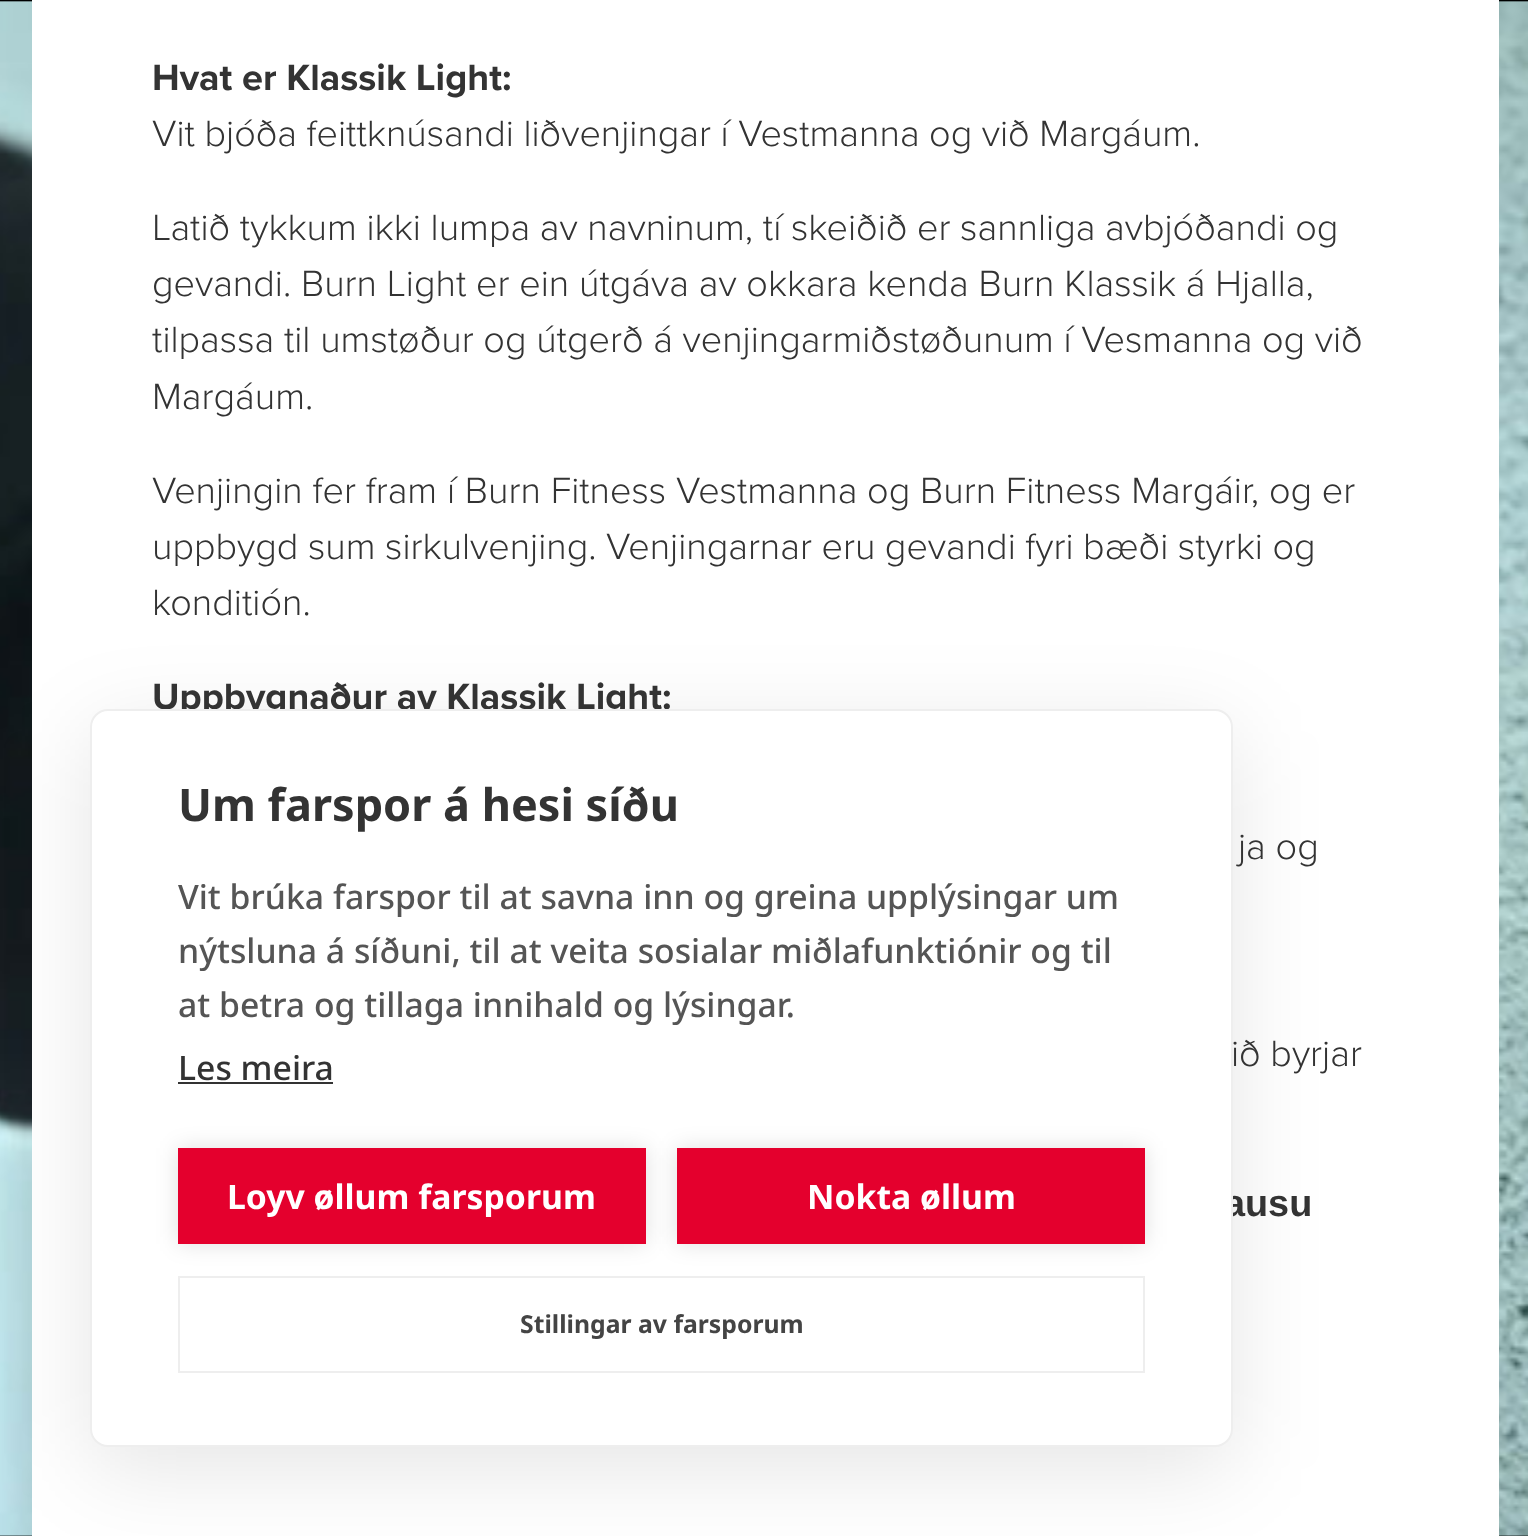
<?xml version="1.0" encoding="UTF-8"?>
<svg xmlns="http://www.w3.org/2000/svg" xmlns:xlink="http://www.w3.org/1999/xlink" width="1528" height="1536">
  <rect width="100%" height="100%" fill="#ffffff" />
  <image x="0" y="0" width="1528" height="1536" xlink:href="image1.png" />
  <image x="0" y="1" width="1528" height="1535" xlink:href="image2.png" />
  <rect x="32" width="1467" height="1536" fill="#ffffff" />
  <rect x="90" y="731" width="1143" height="738" rx="18" fill="#000000" fill-opacity="0.1" filter="blur(45px)" />
  <text x="152" y="90" style="font-family: Proxima Nova; font-size: 37.8px; font-weight: bold; fill: #333333">Hvat er Klassik Light:</text>
  <text x="152" y="146" word-spacing="-0.25" style="font-family: Proxima Nova; font-size: 37.8px; font-weight: 300; fill: #333333">Vit bjóða feittknúsandi liðvenjingar í Vestmanna og við Margáum.</text>
  <text x="152" y="240" word-spacing="-0.1" style="font-family: Proxima Nova; font-size: 37.8px; font-weight: 300; fill: #333333">Latið tykkum ikki lumpa av navninum, tí skeiðið er sannliga avbjóðandi og</text>
  <text x="152" y="296" style="font-family: Proxima Nova; font-size: 37.8px; font-weight: 300; fill: #333333">gevandi. Burn Light er ein útgáva av okkara kenda Burn Klassik á Hjalla,</text>
  <text x="152" y="352" word-spacing="-0.1" style="font-family: Proxima Nova; font-size: 37.8px; font-weight: 300; fill: #333333">tilpassa til umstøður og útgerð á venjingarmiðstøðunum í Vesmanna og við</text>
  <text x="152" y="409" style="font-family: Proxima Nova; font-size: 37.8px; font-weight: 300; fill: #333333">Margáum.</text>
  <text x="152" y="503" style="font-family: Proxima Nova; font-size: 37.8px; font-weight: 300; fill: #333333">Venjingin fer fram í Burn Fitness Vestmanna og Burn Fitness Margáir, og er</text>
  <text x="152" y="559" word-spacing="-0.25" style="font-family: Proxima Nova; font-size: 37.8px; font-weight: 300; fill: #333333">uppbygd sum sirkulvenjing. Venjingarnar eru gevandi fyri bæði styrki og</text>
  <text x="152" y="615" style="font-family: Proxima Nova; font-size: 37.8px; font-weight: 300; fill: #333333">konditión.</text>
  <text x="152" y="709" style="font-family: Proxima Nova; font-size: 37.8px; font-weight: bold; fill: #333333">Uppbygnaður av Klassik Light:</text>
  <text x="1238" y="859" style="font-family: Proxima Nova; font-size: 37.8px; font-weight: 300; fill: #333333">ja og</text>
  <text x="1231" y="1066" word-spacing="-0.1" style="font-family: Proxima Nova; font-size: 37.8px; font-weight: 300; fill: #333333">ið byrjar</text>
  <text x="1224" y="1216" style="font-family: Liberation Sans; font-size: 37.8px; font-weight: bold; fill: #333333">ausu</text>
  <rect x="91" y="710" width="1141" height="736" rx="17" fill="#ffffff" stroke="#eeeeee" stroke-width="2" />
  <text x="178" y="821" style="font-family: Noto Sans; font-size: 45px; font-weight: bold; fill: #333333">Um farspor á hesi síðu</text>
  <text x="178" y="909" style="font-family: Noto Sans; font-size: 33.75px; font-weight: 500; fill: #555555">Vit brúka farspor til at savna inn og greina upplýsingar um</text>
  <text x="178" y="963" style="font-family: Noto Sans; font-size: 33.75px; font-weight: 500; fill: #555555">nýtsluna á síðuni, til at veita sosialar miðlafunktiónir og til</text>
  <text x="178" y="1017" style="font-family: Noto Sans; font-size: 33.75px; font-weight: 500; fill: #555555">at betra og tillaga innihald og lýsingar.</text>
  <text x="178" y="1080" style="font-family: Noto Sans; font-size: 33.75px; font-weight: 500; fill: #333333">Les meira</text>
  <rect x="178" y="1082" width="155" height="2" fill="#333333" />
  <rect x="178" y="1148" width="468" height="96" fill="#000000" fill-opacity="0.12" filter="blur(11px)" />
  <rect x="178" y="1148" width="468" height="96" fill="#e4002d" />
  <text x="227" y="1209" style="font-family: Noto Sans; font-size: 33.75px; font-weight: bold; fill: #ffffff">Loyv øllum farsporum</text>
  <rect x="677" y="1148" width="468" height="96" fill="#000000" fill-opacity="0.12" filter="blur(11px)" />
  <rect x="677" y="1148" width="468" height="96" fill="#e4002d" />
  <text x="807" y="1209" style="font-family: Noto Sans; font-size: 33.75px; font-weight: bold; fill: #ffffff">Nokta øllum</text>
  <rect x="179" y="1277" width="965" height="95" fill="none" stroke="#eeeeee" stroke-width="2" />
  <text x="520" y="1333" style="font-family: Noto Sans; font-size: 24.75px; font-weight: bold; fill: #444444">Stillingar av farsporum</text>
</svg>
